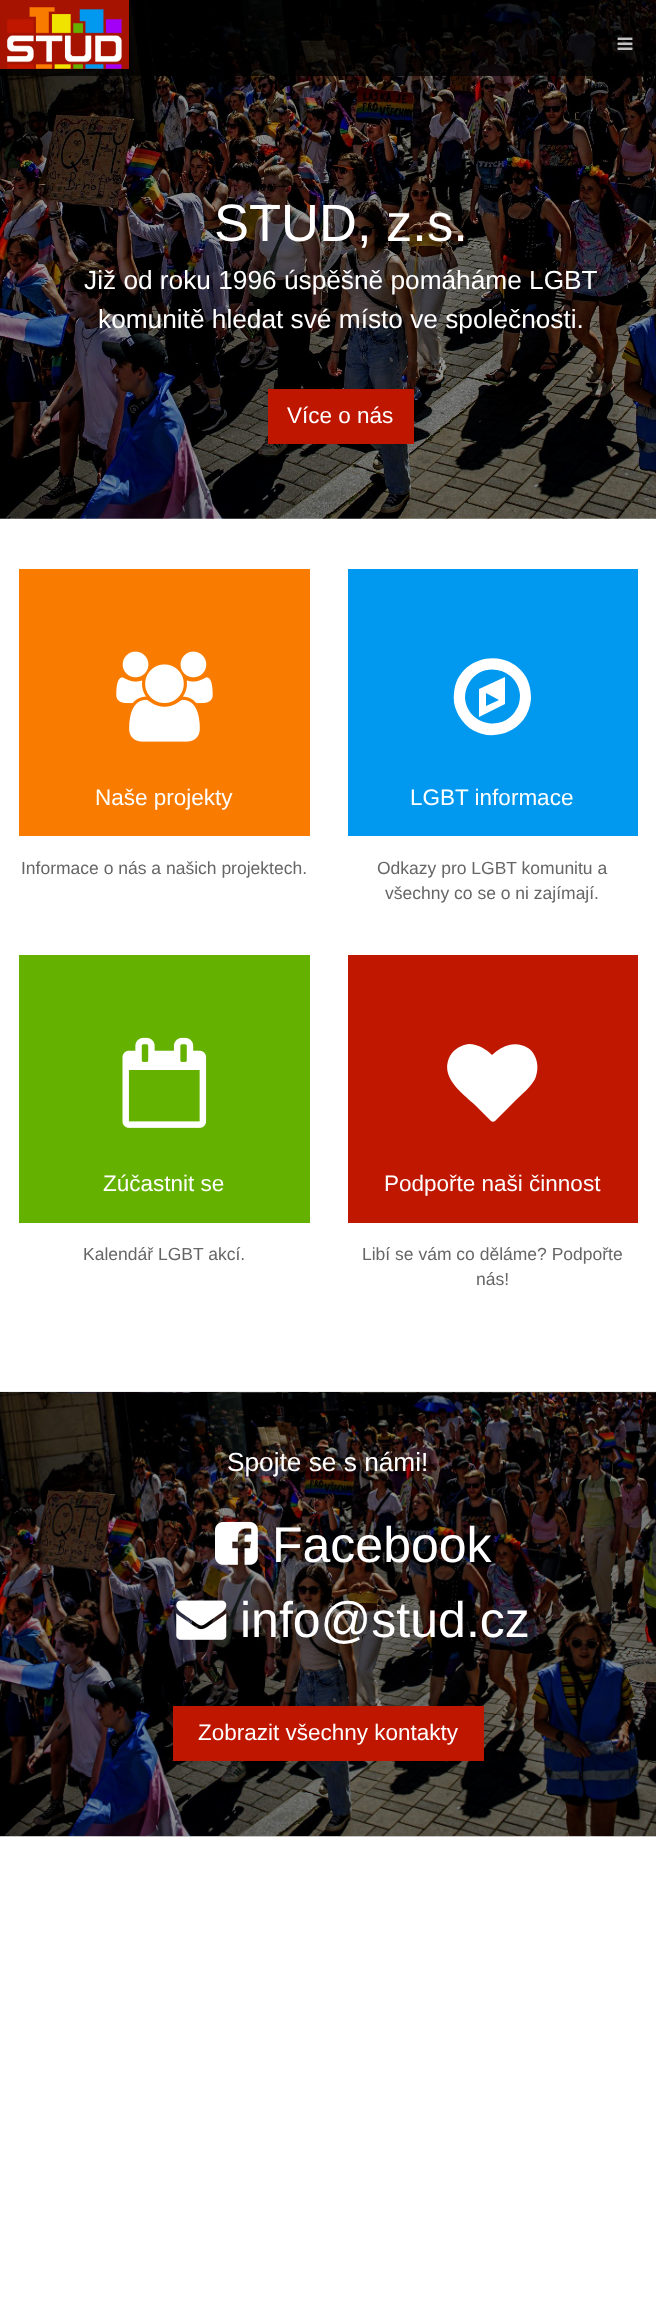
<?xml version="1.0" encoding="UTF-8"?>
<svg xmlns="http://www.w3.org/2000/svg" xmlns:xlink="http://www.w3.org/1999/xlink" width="656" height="2320">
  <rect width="100%" height="100%" fill="#ffffff" />
  <image x="0" y="0" width="656" height="519" xlink:href="image3.png" />
  <rect y="69" width="656" height="7" fill="#000000" fill-opacity="0.75" />
  <rect x="129" width="527" height="69" fill="#000000" fill-opacity="0.75" />
  <rect width="129" height="69" fill="#a61300" />
  <image x="7" y="7" width="115" height="62" xlink:href="image1.png" />
  <image x="617" y="37" width="16" height="13" xlink:href="image2.png" />
  <rect x="268" y="389" width="146" height="55" fill="#bf1600" />
  <rect x="19" y="569" width="291" height="267" fill="#f97c00" />
  <image x="116" y="651" width="97" height="91" xlink:href="image4.png" />
  <rect x="348" y="569" width="290" height="267" fill="#0099ef" />
  <path d="M 486 706 l 13 -6 l -13 -7 z m 19 -29 v 27 l -26 13 v -28 z m 11 33 c 3 -4 4 -10 4 -15 c -2 -27 -38 -35 -51 -12 c -3 5 -4 10 -4 15 c 2 27 38 35 51 12 z m 10 -33 c 4 7 5 15 5 22 c -3 38 -53 50 -72 17 c -4 -7 -6 -14 -5 -22 c 2 -38 53 -49 72 -17 z" fill="#ffffff" />
  <rect x="19" y="955" width="291" height="268" fill="#64b100" />
  <image x="122" y="1037" width="85" height="91" xlink:href="image5.png" />
  <rect x="348" y="955" width="290" height="268" fill="#bf1700" />
  <path d="M 495 1121 c -1 1 -3 1 -4 0 l -16 -16 c -13 -12 -36 -28 -25 -49 c 4 -7 11 -11 19 -12 c 9 0 17 5 23 11 c 10 -9 23 -15 36 -7 c 5 3 8 9 9 15 c 1 5 0 11 -2 16 c -5 9 -13 15 -19 21 z" fill="#ffffff" />
  <image x="0" y="1392" width="656" height="445" xlink:href="image6.png" />
  <rect y="1391" width="656" height="1" fill="#eeeeee" />
  <image x="215" y="1521" width="43" height="44" xlink:href="image7.png" />
  <image x="176" y="1600" width="51" height="40" xlink:href="image8.png" />
  <rect x="173" y="1706" width="311" height="55" fill="#bf1600" />
  <text x="214" y="241" style="font-family: Liberation Sans; font-size: 52.5px; fill: #ffffff">STUD, z.s.</text>
  <text x="84" y="289" style="font-family: Liberation Sans; font-size: 26.25px; fill: #ffffff">Již od roku 1996 úspěšně pomáháme LGBT</text>
  <text x="98" y="328" style="font-family: Liberation Sans; font-size: 26.25px; fill: #ffffff">komunitě hledat své místo ve společnosti.</text>
  <text x="287" y="423" style="font-family: Liberation Sans; font-size: 22.5px; fill: #ffffff">Více o nás</text>
  <text x="95" y="805" style="font-family: Liberation Sans; font-size: 22.5px; fill: #ffffff">Naše projekty</text>
  <text x="21" y="874" style="font-family: Liberation Sans; font-size: 17.5px; fill: #666666">Informace o nás a našich projektech.</text>
  <text x="410" y="805" style="font-family: Liberation Sans; font-size: 22.5px; fill: #ffffff">LGBT informace</text>
  <text x="377" y="874" style="font-family: Liberation Sans; font-size: 17.5px; fill: #666666">Odkazy pro LGBT komunitu a</text>
  <text x="385" y="899" style="font-family: Liberation Sans; font-size: 17.5px; fill: #666666">všechny co se o ni zajímají.</text>
  <text x="103" y="1191" style="font-family: Liberation Sans; font-size: 22.5px; fill: #ffffff">Zúčastnit se</text>
  <text x="83" y="1260" style="font-family: Liberation Sans; font-size: 17.5px; fill: #666666">Kalendář LGBT akcí.</text>
  <text x="384" y="1191" style="font-family: Liberation Sans; font-size: 22.5px; fill: #ffffff">Podpořte naši činnost</text>
  <text x="362" y="1260" style="font-family: Liberation Sans; font-size: 17.5px; fill: #666666">Libí se vám co děláme? Podpořte</text>
  <text x="476" y="1285" style="font-family: Liberation Sans; font-size: 17.5px; fill: #666666">nás!</text>
  <text x="227" y="1471" style="font-family: Liberation Sans; font-size: 26.25px; fill: #ffffff">Spojte se s námi!</text>
  <text x="272" y="1562" style="font-family: Liberation Sans; font-size: 50px; fill: #ffffff">Facebook</text>
  <text x="240" y="1637" style="font-family: Liberation Sans; font-size: 50px; fill: #ffffff">info@stud.cz</text>
  <text x="198" y="1740" style="font-family: Liberation Sans; font-size: 22.5px; fill: #ffffff">Zobrazit všechny kontakty</text>
</svg>
